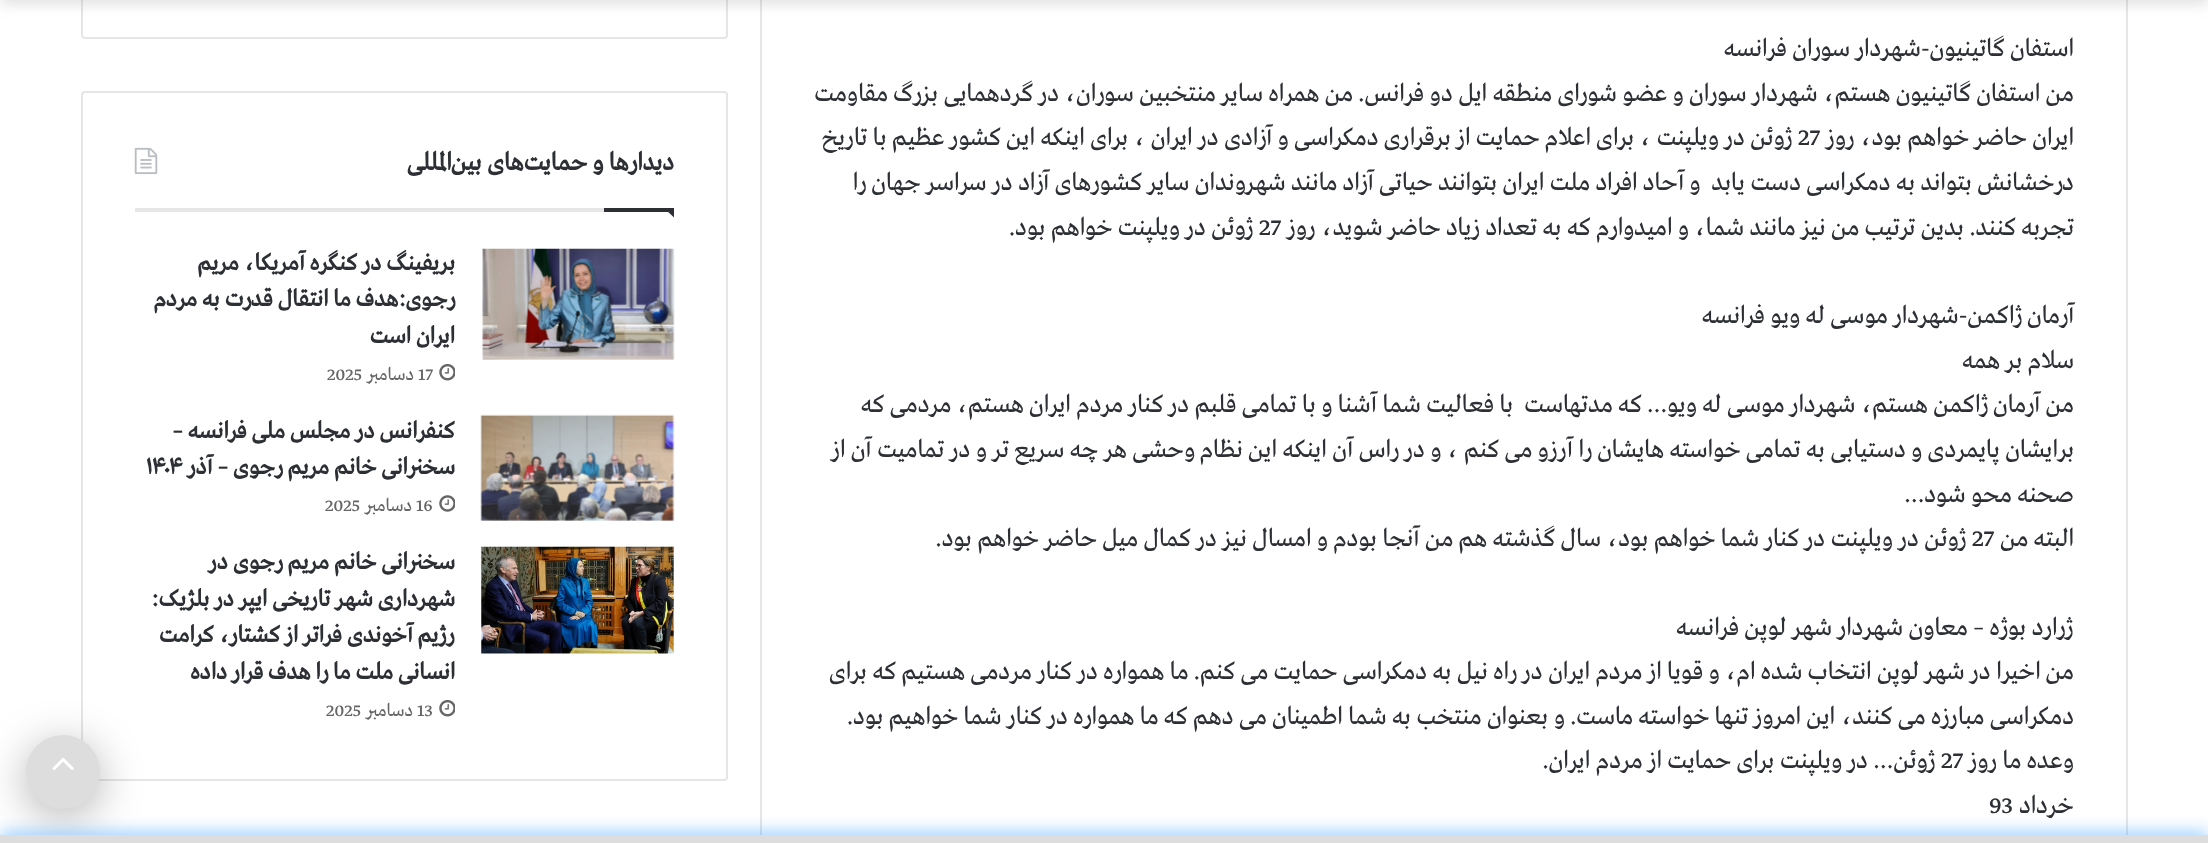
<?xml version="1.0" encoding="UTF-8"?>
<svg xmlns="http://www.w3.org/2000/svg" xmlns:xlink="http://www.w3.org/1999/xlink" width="2208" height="843">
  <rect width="100%" height="100%" fill="#ffffff" />
  <rect x="761" y="-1" width="1366" height="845" fill="none" stroke="#e6e6e6" stroke-width="2" />
  <rect x="82" y="-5" width="645" height="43" rx="3" fill="none" stroke="#e6e6e6" stroke-width="2" />
  <rect y="-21" width="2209" height="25" fill="#636363" fill-opacity="0.2" filter="blur(7px)" />
  <rect x="82" y="92" width="645" height="688" rx="3" fill="none" stroke="#e6e6e6" stroke-width="2" />
  <rect x="135" y="208" width="469" height="4" fill="#e6e6e6" />
  <image x="134" y="147" width="24" height="28" xlink:href="image1.png" />
  <path d="M 665 209 h 9 v 8.5 z" fill="#2c2f34" />
  <rect x="604" y="208" width="70" height="4" fill="#2c2f34" />
  <image x="481" y="248" width="194" height="112" xlink:href="image2.png" />
  <image x="439" y="364" width="16" height="17" xlink:href="image3.png" />
  <image x="480" y="414" width="195" height="107" xlink:href="image4.png" />
  <image x="439" y="495" width="16" height="17" xlink:href="image5.png" />
  <image x="481" y="546" width="193" height="108" xlink:href="image6.png" />
  <image x="439" y="700" width="16" height="17" xlink:href="image3.png" />
  <rect x="26" y="744" width="74" height="73" rx="36.5" fill="#000000" fill-opacity="0.3" filter="blur(22px)" />
  <circle cx="63" cy="772" r="37" fill="#dddddd" />
  <image x="52" y="757" width="22" height="13" xlink:href="image7.png" />
  <rect y="835" width="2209" height="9" fill="#0088ff" fill-opacity="0.7" filter="blur(9px)" />
  <rect y="835" width="2208" height="8" fill="#dddddd" />
  <text x="2074" y="56" style="font-family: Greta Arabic; font-size: 26.25px; direction: rtl; fill: #2c2f34">استفان گاتینیون-شهردار سوران فرانسه</text>
  <text x="2074" y="101" style="font-family: Greta Arabic; font-size: 26.25px; direction: rtl; fill: #2c2f34">من استفان گاتینیون هستم، شهردار سوران و عضو شورای منطقه ایل دو فرانس. من همراه سایر منتخبین سوران، در گردهمایی بزرگ مقاومت</text>
  <text x="2074" y="145" style="font-family: Greta Arabic; font-size: 26.25px; direction: rtl; fill: #2c2f34">ایران حاضر خواهم بود، روز</text>
  <text x="1798" y="145" style="font-family: Greta Arabic; font-size: 26.25px; fill: #2c2f34">27</text>
  <text x="1793" y="145" style="font-family: Greta Arabic; font-size: 26.25px; direction: rtl; fill: #2c2f34">ژوئن در ویلپنت ، برای اعلام حمایت از برقراری دمكراسی و آزادی در ایران ، برای اینكه این كشور عظیم با تاریخ</text>
  <text x="2074" y="190" style="font-family: Greta Arabic; font-size: 26.25px; direction: rtl; fill: #2c2f34" xml:space="preserve">درخشانش بتواند به دمكراسی دست یابد  و آحاد افراد ملت ایران بتوانند حیاتی آزاد مانند شهروندان سایر كشورهای آزاد در سراسر جهان را</text>
  <text x="2074" y="235" style="font-family: Greta Arabic; font-size: 26.25px; direction: rtl; fill: #2c2f34">تجربه كنند. بدین ترتیب من نیز مانند شما، و امیدوارم كه به تعداد زیاد حاضر شوید، روز</text>
  <text x="1259" y="235" style="font-family: Greta Arabic; font-size: 26.25px; fill: #2c2f34">27</text>
  <text x="1254" y="235" style="font-family: Greta Arabic; font-size: 26.25px; direction: rtl; fill: #2c2f34">ژوئن در ویلپنت خواهم بود.</text>
  <text x="2074" y="323" style="font-family: Greta Arabic; font-size: 26.25px; direction: rtl; fill: #2c2f34">آرمان ژاكمن-شهردار موسی له ویو فرانسه</text>
  <text x="2074" y="368" style="font-family: Greta Arabic; font-size: 26.25px; direction: rtl; fill: #2c2f34">سلام بر همه</text>
  <text x="2074" y="412" style="font-family: Greta Arabic; font-size: 26.25px; direction: rtl; fill: #2c2f34" xml:space="preserve">من آرمان ژاكمن هستم، شهردار موسی له ویو… كه مدتهاست  با فعالیت شما آشنا و با تمامی قلبم در كنار مردم ایران هستم، مردمی كه</text>
  <text x="2074" y="457" style="font-family: Greta Arabic; font-size: 26.25px; direction: rtl; fill: #2c2f34">برایشان پایمردی و دستیابی به تمامی خواسته هایشان را آرزو می كنم ، و در راس آن اینكه این نظام وحشی هر چه سریع تر و در تمامیت آن از</text>
  <text x="2074" y="502" style="font-family: Greta Arabic; font-size: 26.25px; direction: rtl; fill: #2c2f34">صحنه محو شود…</text>
  <text x="2074" y="546" style="font-family: Greta Arabic; font-size: 26.25px; direction: rtl; fill: #2c2f34">البته من</text>
  <text x="1972" y="546" style="font-family: Greta Arabic; font-size: 26.25px; fill: #2c2f34">27</text>
  <text x="1967" y="546" style="font-family: Greta Arabic; font-size: 26.25px; direction: rtl; fill: #2c2f34">ژوئن در ویلپنت در كنار شما خواهم بود، سال گذشته هم من آنجا بودم و امسال نیز در كمال میل حاضر خواهم بود.</text>
  <text x="2074" y="635" style="font-family: Greta Arabic; font-size: 26.25px; direction: rtl; fill: #2c2f34">ژرارد بوژه – معاون شهردار شهر لوپن فرانسه</text>
  <text x="2074" y="679" style="font-family: Greta Arabic; font-size: 26.25px; direction: rtl; fill: #2c2f34">من اخیرا در شهر لوپن انتخاب شده ام، و قویا از مردم ایران در راه نیل به دمكراسی حمایت می كنم. ما همواره در كنار مردمی هستیم كه برای</text>
  <text x="2074" y="724" style="font-family: Greta Arabic; font-size: 26.25px; direction: rtl; fill: #2c2f34">دمكراسی مبارزه می كنند، این امروز تنها خواسته ماست. و بعنوان منتخب به شما اطمینان می دهم كه ما همواره در كنار شما خواهیم بود.</text>
  <text x="2074" y="768" style="font-family: Greta Arabic; font-size: 26.25px; direction: rtl; fill: #2c2f34">وعده ما روز</text>
  <text x="1941" y="768" style="font-family: Greta Arabic; font-size: 26.25px; fill: #2c2f34">27</text>
  <text x="1936" y="768" style="font-family: Greta Arabic; font-size: 26.25px; direction: rtl; fill: #2c2f34">ژوئن… در ویلپنت برای حمایت از مردم ایران.</text>
  <text x="2074" y="813" style="font-family: Greta Arabic; font-size: 26.25px; direction: rtl; fill: #2c2f34">خرداد</text>
  <text x="1989" y="813" style="font-family: Greta Arabic; font-size: 26.25px; fill: #2c2f34">93</text>
  <text x="674" y="170" style="font-family: Greta Arabic; font-size: 26.25px; font-weight: bold; direction: rtl; fill: #2c2f34">دیدارها و حمایت‌های بین‌المللی</text>
  <text x="455" y="270" style="font-family: Greta Arabic; font-size: 24.5px; font-weight: bold; direction: rtl; fill: #2c2f34">بریفینگ در کنگره آمریکا، مریم</text>
  <text x="455" y="306" style="font-family: Greta Arabic; font-size: 24.5px; font-weight: bold; direction: rtl; fill: #2c2f34">رجوی:هدف ما انتقال قدرت به مردم</text>
  <text x="455" y="343" style="font-family: Greta Arabic; font-size: 24.5px; font-weight: bold; direction: rtl; fill: #2c2f34">ایران است</text>
  <text x="418" y="380" style="font-family: Greta Arabic; font-size: 19px; fill: #666666">17</text>
  <text x="414" y="380" style="font-family: Greta Arabic; font-size: 19px; direction: rtl; fill: #666666">دسامبر</text>
  <text x="327" y="380" style="font-family: Greta Arabic; font-size: 19px; fill: #666666">2025</text>
  <text x="455" y="438" style="font-family: Greta Arabic; font-size: 24.5px; font-weight: bold; direction: rtl; fill: #2c2f34">کنفرانس در مجلس ملی فرانسه –</text>
  <text x="455" y="474" style="font-family: Greta Arabic; font-size: 24.5px; font-weight: bold; direction: rtl; fill: #2c2f34">سخنرانی خانم مریم رجوی – آذر</text>
  <text x="146" y="474" style="font-family: Greta Arabic; font-size: 24.5px; font-weight: bold; fill: #2c2f34">۱۴۰۴</text>
  <text x="416" y="511" style="font-family: Greta Arabic; font-size: 19px; fill: #666666">16</text>
  <text x="412" y="511" style="font-family: Greta Arabic; font-size: 19px; direction: rtl; fill: #666666">دسامبر</text>
  <text x="325" y="511" style="font-family: Greta Arabic; font-size: 19px; fill: #666666">2025</text>
  <text x="455" y="569" style="font-family: Greta Arabic; font-size: 24.5px; font-weight: bold; direction: rtl; fill: #2c2f34">سخنرانی خانم مریم رجوی در</text>
  <text x="455" y="606" style="font-family: Greta Arabic; font-size: 24.5px; font-weight: bold; direction: rtl; fill: #2c2f34">شهرداری شهر تاریخی ایپر در بلژیک:</text>
  <text x="455" y="642" style="font-family: Greta Arabic; font-size: 24.5px; font-weight: bold; direction: rtl; fill: #2c2f34">رژیم آخوندی فراتر از کشتار، کرامت</text>
  <text x="455" y="679" style="font-family: Greta Arabic; font-size: 24.5px; font-weight: bold; direction: rtl; fill: #2c2f34">انسانی ملت ما را هدف قرار داده</text>
  <text x="417" y="716" style="font-family: Greta Arabic; font-size: 19px; fill: #666666">13</text>
  <text x="413" y="716" style="font-family: Greta Arabic; font-size: 19px; direction: rtl; fill: #666666">دسامبر</text>
  <text x="326" y="716" style="font-family: Greta Arabic; font-size: 19px; fill: #666666">2025</text>
</svg>
